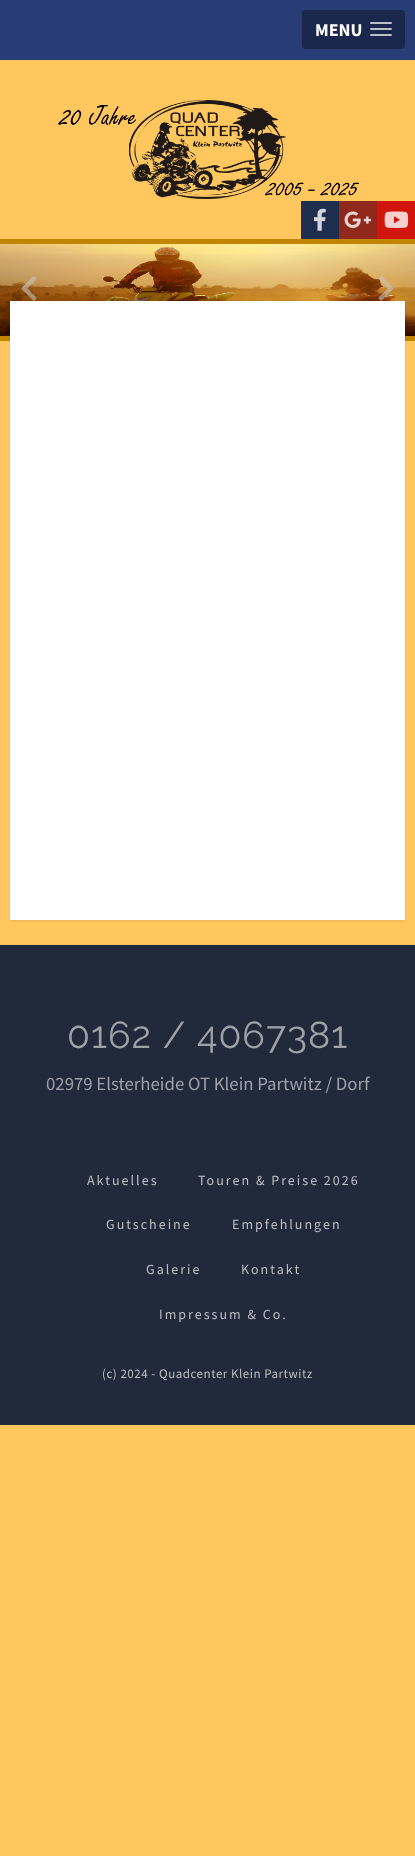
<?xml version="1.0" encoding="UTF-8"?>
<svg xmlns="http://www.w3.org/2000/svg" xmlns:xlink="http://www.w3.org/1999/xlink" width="415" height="1856">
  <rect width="100%" height="100%" fill="#ffc75e" />
  <rect width="415" height="60" fill="#283c75" />
  <rect x="302" y="10" width="103" height="39" rx="4" fill="#1a274c" />
  <rect x="370" y="22" width="22" height="2" rx="1" fill="#babec9" />
  <rect x="370" y="28" width="22" height="2" rx="1" fill="#babec9" />
  <rect x="370" y="34" width="22" height="2" rx="1" fill="#babec9" />
  <image x="58" y="100" width="301" height="99" xlink:href="image1.png" />
  <rect x="301" y="201" width="38" height="38" fill="#1e2e4f" />
  <image x="314" y="208" width="12" height="23" xlink:href="image2.png" />
  <rect x="339" y="201" width="38" height="38" fill="#90281c" />
  <image x="344" y="211" width="27" height="17" xlink:href="image3.png" />
  <rect x="377" y="201" width="38" height="38" fill="#d1150d" />
  <image x="384" y="211" width="25" height="17" xlink:href="image4.png" />
  <rect y="239" width="415" height="5" fill="#c28500" />
  <rect y="336" width="415" height="5" fill="#c28500" />
  <image x="0" y="244" width="415" height="92" xlink:href="image5.png" />
  <image x="21" y="276" width="16" height="25" xlink:href="image6.png" />
  <image x="378" y="276" width="16" height="25" xlink:href="image7.png" />
  <rect x="10" y="302" width="395" height="619" fill="#000000" fill-opacity="0.1" filter="blur(1px)" />
  <rect x="10" y="301" width="395" height="619" fill="#ffffff" />
  <rect y="945" width="415" height="480" fill="#202a3b" />
  <text x="315" y="36" style="font-family: Source Sans Pro; font-size: 18px; font-weight: bold; fill: #ffffff">MENU</text>
  <text x="67" y="1048" style="font-family: Raleway; font-size: 37.5px; letter-spacing: 1px; fill: #9da1a9">0162 / 4067381</text>
  <text x="46" y="1090" style="font-family: Source Sans Pro; font-size: 18.75px; fill: #9da1a9">02979 Elsterheide OT Klein Partwitz / Dorf</text>
  <text x="87" y="1185" style="font-family: Source Sans Pro; font-size: 14px; letter-spacing: 2px; fill: #bcbfc4">Aktuelles</text>
  <text x="198" y="1185" style="font-family: Source Sans Pro; font-size: 14px; letter-spacing: 2px; fill: #bcbfc4">Touren &amp; Preise 2026</text>
  <text x="106" y="1229" style="font-family: Source Sans Pro; font-size: 14px; letter-spacing: 2px; fill: #bcbfc4">Gutscheine</text>
  <text x="232" y="1229" style="font-family: Source Sans Pro; font-size: 14px; letter-spacing: 2px; fill: #bcbfc4">Empfehlungen</text>
  <text x="146" y="1274" style="font-family: Source Sans Pro; font-size: 14px; letter-spacing: 2px; fill: #bcbfc4">Galerie</text>
  <text x="241" y="1274" style="font-family: Source Sans Pro; font-size: 14px; letter-spacing: 2px; fill: #bcbfc4">Kontakt</text>
  <text x="159" y="1319" style="font-family: Source Sans Pro; font-size: 14px; letter-spacing: 2px; fill: #bcbfc4">Impressum &amp; Co.</text>
  <text x="102" y="1378" style="font-family: Source Sans Pro; font-size: 13px; letter-spacing: 0.5px; fill: #bcbfc4">(c) 2024 - Quadcenter Klein Partwitz</text>
</svg>
